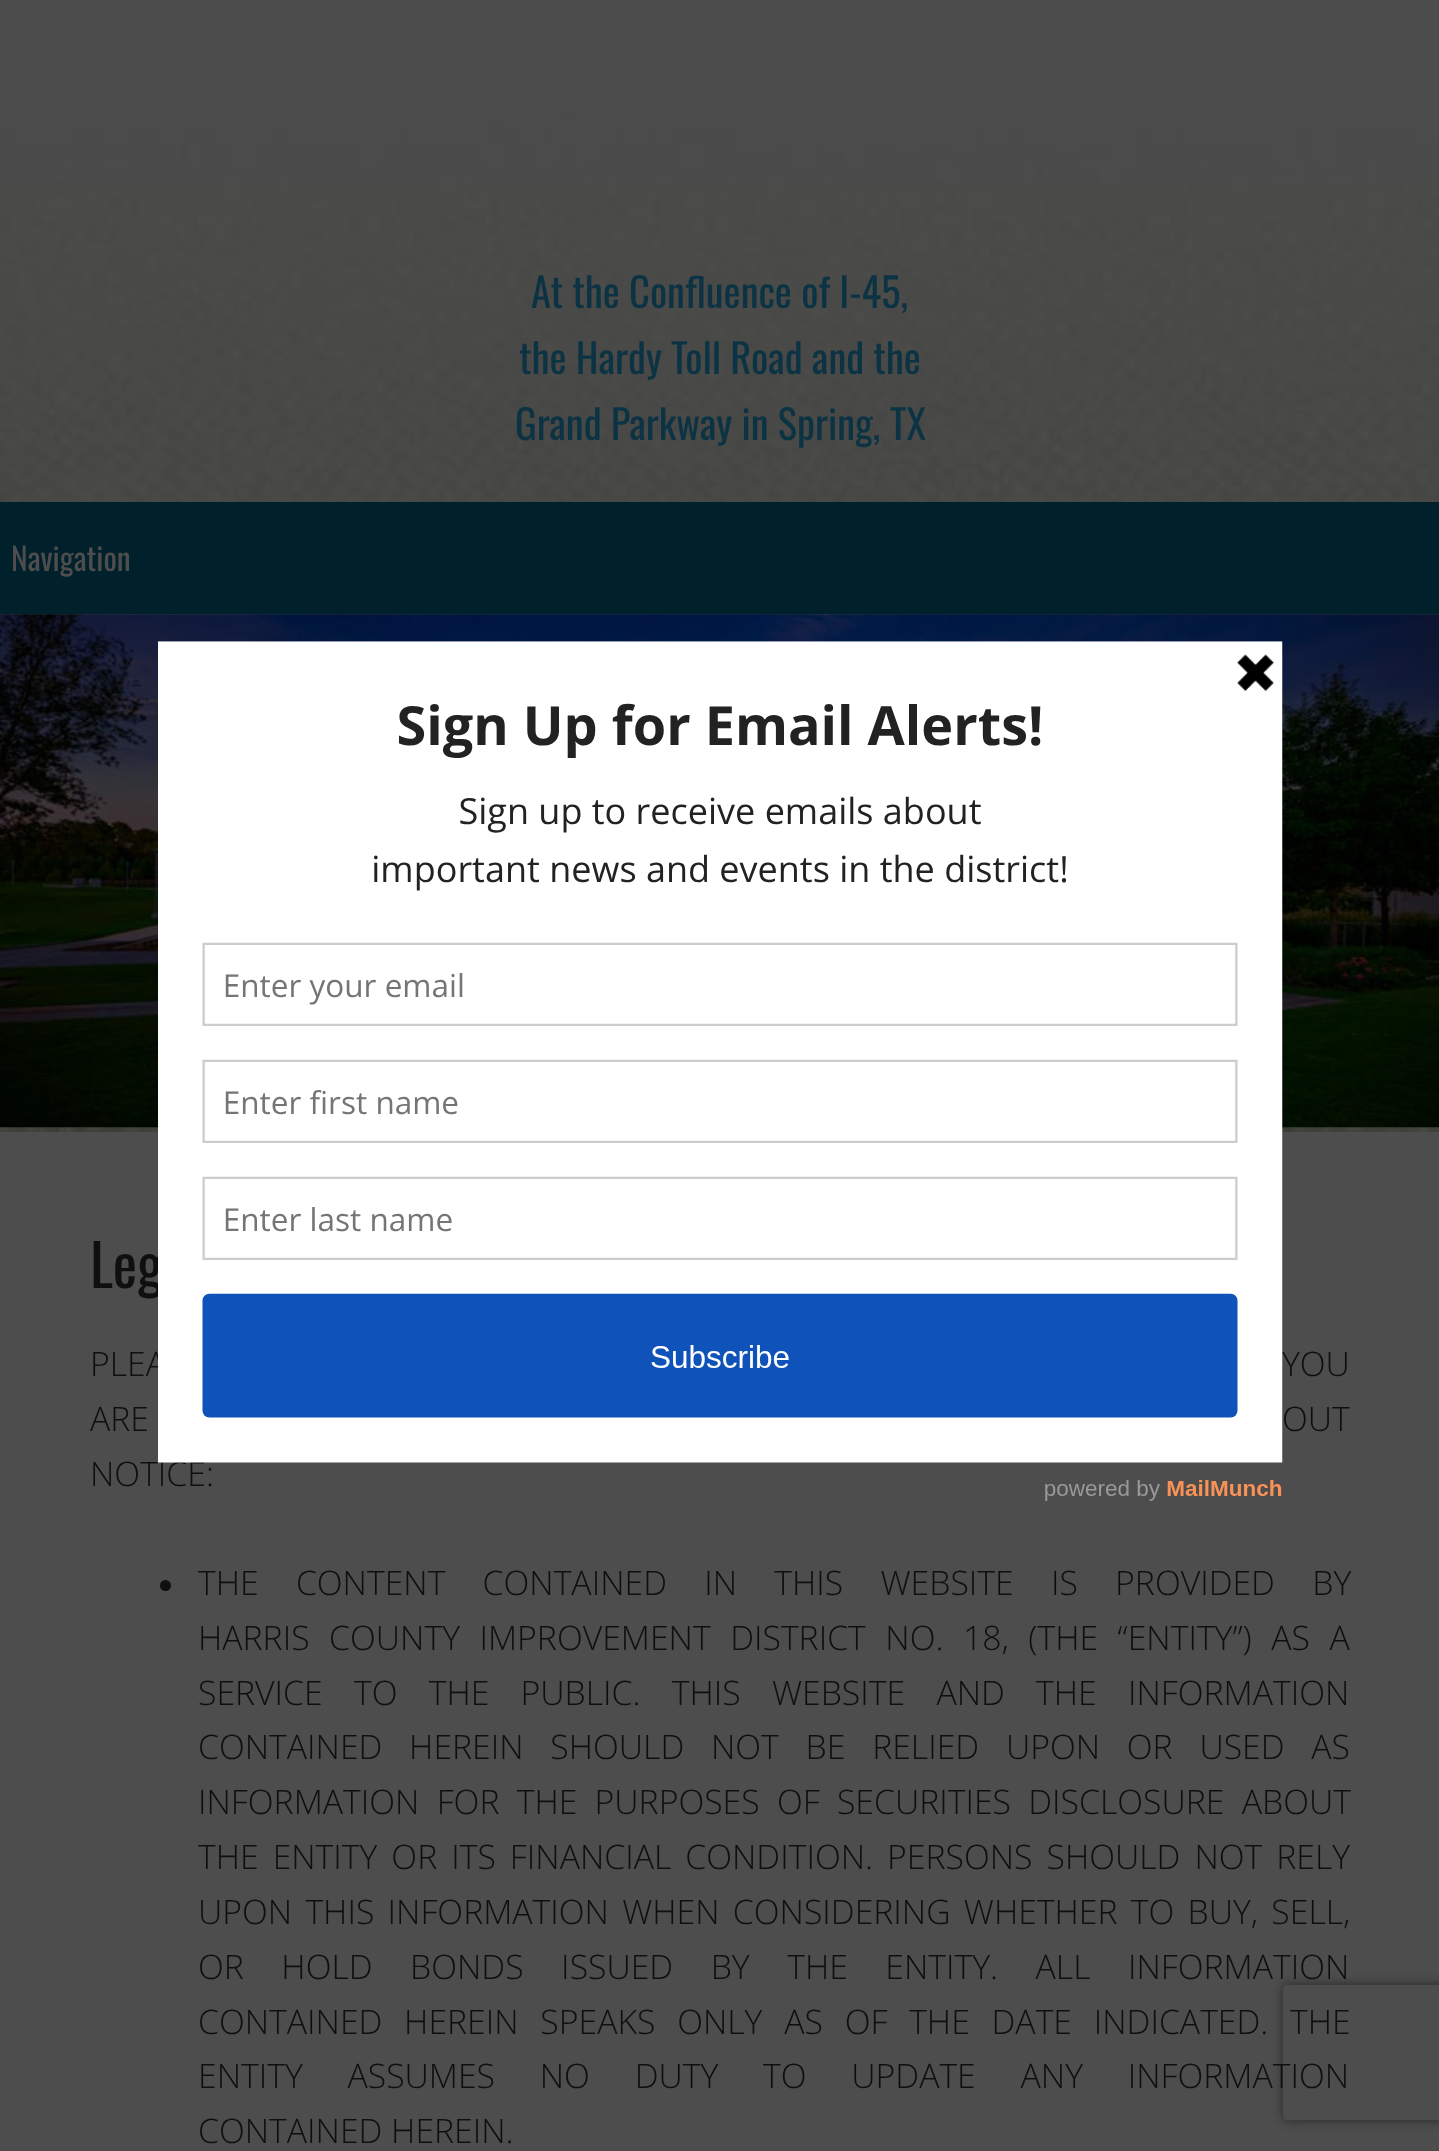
<?xml version="1.0" encoding="UTF-8"?>
<svg xmlns="http://www.w3.org/2000/svg" xmlns:xlink="http://www.w3.org/1999/xlink" width="1439" height="2151">
  <defs>
    <clipPath id="clip1"><path d="M 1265 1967 h 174 v 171 h -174 z m 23 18 h 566 c 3 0 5 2 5 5 v 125 c 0 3 -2 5 -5 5 h -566 c -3 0 -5 -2 -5 -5 v -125 c 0 -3 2 -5 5 -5 z" clip-rule="evenodd" /></clipPath>
  </defs>
  <rect width="100%" height="100%" fill="#ffffff" />
  <image x="0" y="0" width="1439" height="1132" xlink:href="image1.png" />
  <rect y="502" width="1439" height="112" fill="#00202b" />
  <image x="0" y="614" width="1439" height="514" xlink:href="image2.png" />
  <rect y="1132" width="1439" height="1019" fill="#4d4d4d" />
  <circle cx="165.5" cy="1585.5" r="5.5" fill="#0f0f0f" />
  <g clip-path="url(#clip1)">
    <rect x="1283" y="1985" width="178" height="135" rx="5" fill="#262626" filter="blur(5.5px)" />
  </g>
  <text x="531" y="308" style="font-family: Oswald; font-size: 40.5px; fill: #0c3344">At the Confluence of I-45,</text>
  <text x="519" y="374" style="font-family: Oswald; font-size: 40.5px; fill: #0c3344">the Hardy Toll Road and the</text>
  <text x="515" y="440" style="font-family: Oswald; font-size: 40.5px; fill: #0c3344">Grand Parkway in Spring, TX</text>
  <text x="11" y="571" style="font-family: Oswald; font-size: 31.5px; fill: #4d4d4d">Navigation</text>
  <text x="90" y="1288" style="font-family: Oswald; font-size: 58px; fill: #0f0f0f">Leg</text>
  <text x="90" y="1376" word-spacing="1" style="font-family: Open Sans; font-size: 33.75px; font-weight: 300; fill: #0f0f0f">PLEA</text>
  <text x="1282" y="1376" word-spacing="1" style="font-family: Open Sans; font-size: 33.75px; font-weight: 300; fill: #0f0f0f">YOU</text>
  <text x="90" y="1431" word-spacing="4" style="font-family: Open Sans; font-size: 33.75px; font-weight: 300; fill: #0f0f0f">ARE</text>
  <text x="1282" y="1431" word-spacing="4" style="font-family: Open Sans; font-size: 33.75px; font-weight: 300; fill: #0f0f0f">OUT</text>
  <text x="90" y="1486" style="font-family: Open Sans; font-size: 33.75px; font-weight: 300; fill: #0f0f0f">NOTICE:</text>
  <text x="198" y="1595" word-spacing="28.5" style="font-family: Open Sans; font-size: 33.75px; font-weight: 300; fill: #0f0f0f">THE CONTENT CONTAINED IN THIS WEBSITE IS PROVIDED BY</text>
  <text x="198" y="1650" word-spacing="10.75" style="font-family: Open Sans; font-size: 33.75px; font-weight: 300; fill: #0f0f0f">HARRIS COUNTY IMPROVEMENT DISTRICT NO. 18, (THE “ENTITY”) AS A</text>
  <text x="198" y="1705" word-spacing="22.5" style="font-family: Open Sans; font-size: 33.75px; font-weight: 300; fill: #0f0f0f">SERVICE TO THE PUBLIC. THIS WEBSITE AND THE INFORMATION</text>
  <text x="198" y="1759" word-spacing="18" style="font-family: Open Sans; font-size: 33.75px; font-weight: 300; fill: #0f0f0f">CONTAINED HEREIN SHOULD NOT BE RELIED UPON OR USED AS</text>
  <text x="198" y="1814" word-spacing="8.5" style="font-family: Open Sans; font-size: 33.75px; font-weight: 300; fill: #0f0f0f">INFORMATION FOR THE PURPOSES OF SECURITIES DISCLOSURE ABOUT</text>
  <text x="198" y="1869" word-spacing="5.25" style="font-family: Open Sans; font-size: 33.75px; font-weight: 300; fill: #0f0f0f">THE ENTITY OR ITS FINANCIAL CONDITION. PERSONS SHOULD NOT RELY</text>
  <text x="198" y="1924" word-spacing="4.5" style="font-family: Open Sans; font-size: 33.75px; font-weight: 300; fill: #0f0f0f">UPON THIS INFORMATION WHEN CONSIDERING WHETHER TO BUY, SELL,</text>
  <text x="198" y="1979" word-spacing="28.75" style="font-family: Open Sans; font-size: 33.75px; font-weight: 300; fill: #0f0f0f">OR HOLD BONDS ISSUED BY THE ENTITY. ALL INFORMATION</text>
  <text x="198" y="2034" word-spacing="13" style="font-family: Open Sans; font-size: 33.75px; font-weight: 300; fill: #0f0f0f">CONTAINED HEREIN SPEAKS ONLY AS OF THE DATE INDICATED. THE</text>
  <text x="198" y="2088" word-spacing="36" style="font-family: Open Sans; font-size: 33.75px; font-weight: 300; fill: #0f0f0f">ENTITY ASSUMES NO DUTY TO UPDATE ANY INFORMATION</text>
  <text x="198" y="2143" style="font-family: Open Sans; font-size: 33.75px; font-weight: 300; fill: #0f0f0f">CONTAINED HEREIN.</text>
  <image x="158" y="641" width="1125" height="860" xlink:href="image3.png" />
</svg>
